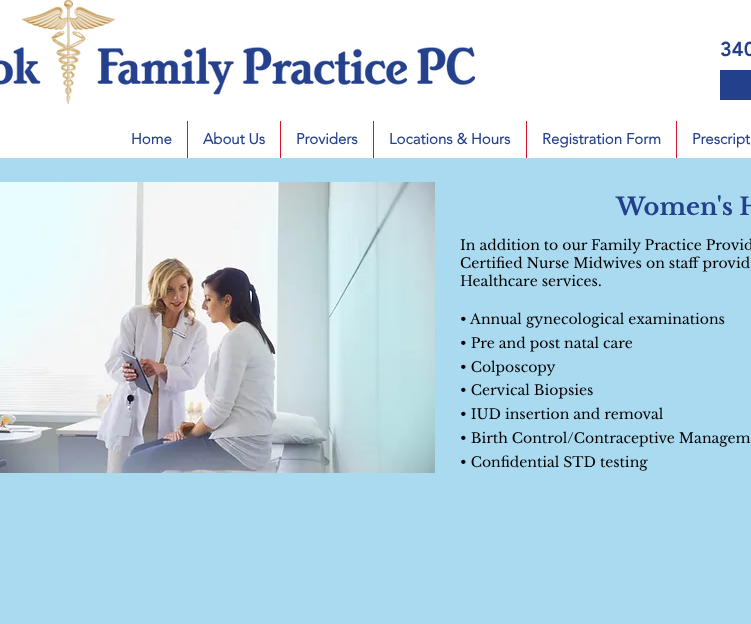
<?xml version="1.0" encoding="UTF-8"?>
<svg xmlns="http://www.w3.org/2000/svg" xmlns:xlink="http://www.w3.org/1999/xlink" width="751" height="624">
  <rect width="100%" height="100%" fill="#ffffff" />
  <image x="0" y="0" width="475" height="104" xlink:href="image1.png" />
  <rect x="720" y="70" width="31" height="30" fill="#23408d" />
  <rect x="187" y="121" width="1" height="37" fill="#d51431" />
  <rect x="280" y="121" width="1" height="37" fill="#d51431" />
  <rect x="373" y="121" width="1" height="37" fill="#d51431" />
  <rect x="526" y="121" width="1" height="37" fill="#d51431" />
  <rect x="676" y="121" width="1" height="37" fill="#d51431" />
  <rect y="158" width="751" height="466" fill="#aadaf0" />
  <image x="0" y="182" width="435" height="291" xlink:href="image2.png" />
  <text x="720" y="56" style="font-family: 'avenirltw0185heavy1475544'; font-size: 20px; font-weight: 900; fill: #23408d">340</text>
  <text x="131" y="144" style="font-family: 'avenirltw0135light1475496'; font-size: 15px; font-weight: bold; fill: #23408d">Home</text>
  <text x="203" y="144" style="font-family: 'avenirltw0135light1475496'; font-size: 15px; font-weight: bold; fill: #23408d">About Us</text>
  <text x="296" y="144" style="font-family: 'avenirltw0135light1475496'; font-size: 15px; font-weight: bold; fill: #23408d">Providers</text>
  <text x="389" y="144" style="font-family: 'avenirltw0135light1475496'; font-size: 15px; font-weight: bold; fill: #23408d">Locations &amp; Hours</text>
  <text x="542" y="144" style="font-family: 'avenirltw0135light1475496'; font-size: 15px; font-weight: bold; fill: #23408d">Registration Form</text>
  <text x="692" y="144" style="font-family: 'avenirltw0135light1475496'; font-size: 15px; font-weight: bold; fill: #23408d">Prescript</text>
  <text x="616" y="215" style="font-family: Libre Baskerville; font-size: 24px; font-weight: bold; fill: #23408d">Women's H</text>
  <text x="460" y="250" style="font-family: Libre Baskerville; font-size: 14px; fill: #000000">In addition to our Family Practice Provid</text>
  <text x="460" y="268" style="font-family: Libre Baskerville; font-size: 14px; fill: #000000">Certified Nurse Midwives on staff provid</text>
  <text x="460" y="286" style="font-family: Libre Baskerville; font-size: 14px; fill: #000000">Healthcare services.</text>
  <text x="460" y="324" style="font-family: Libre Baskerville; font-size: 14px; fill: #000000">• Annual gynecological examinations</text>
  <text x="460" y="348" style="font-family: Libre Baskerville; font-size: 14px; fill: #000000">• Pre and post natal care</text>
  <text x="460" y="372" style="font-family: Libre Baskerville; font-size: 14px; fill: #000000">• Colposcopy</text>
  <text x="460" y="395" style="font-family: Libre Baskerville; font-size: 14px; fill: #000000">• Cervical Biopsies</text>
  <text x="460" y="419" style="font-family: Libre Baskerville; font-size: 14px; fill: #000000">• IUD insertion and removal</text>
  <text x="460" y="443" style="font-family: Libre Baskerville; font-size: 14px; fill: #000000">• Birth Control/Contraceptive Managem</text>
  <text x="460" y="467" style="font-family: Libre Baskerville; font-size: 14px; fill: #000000">• Confidential STD testing</text>
</svg>
